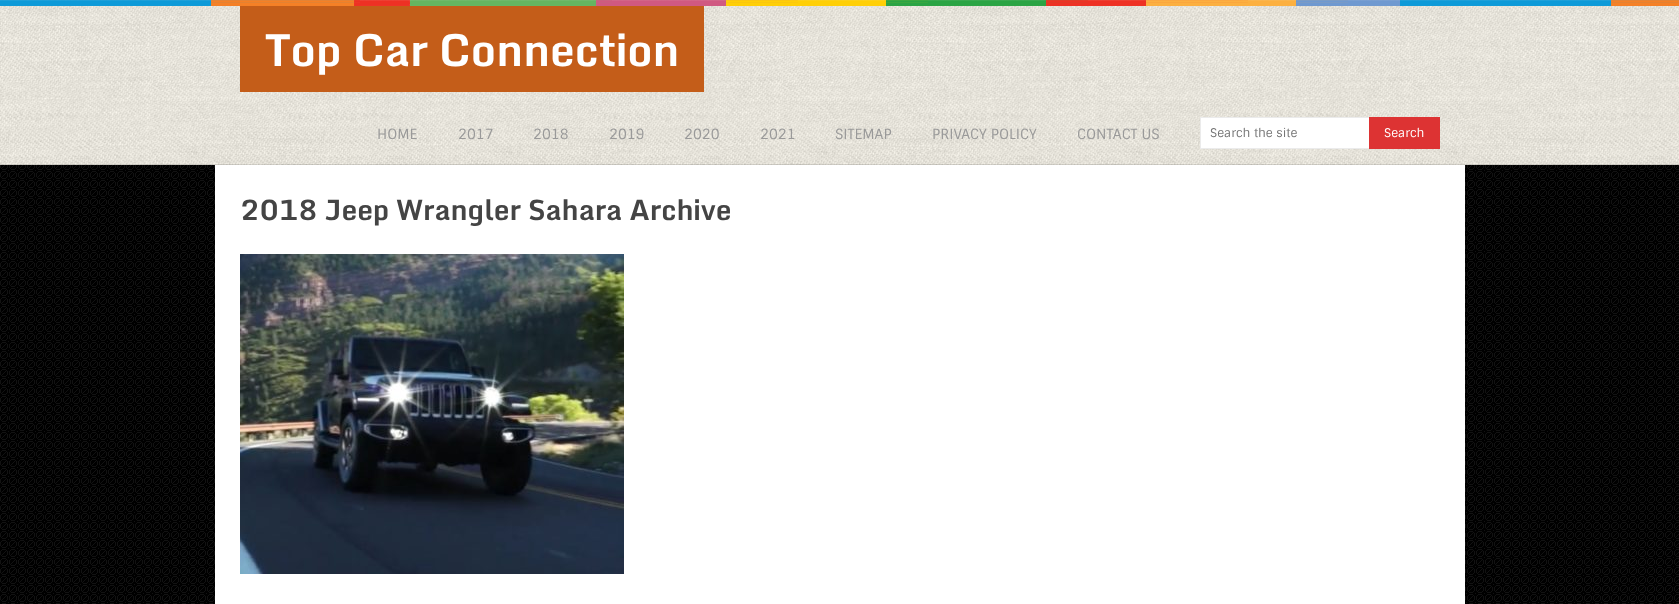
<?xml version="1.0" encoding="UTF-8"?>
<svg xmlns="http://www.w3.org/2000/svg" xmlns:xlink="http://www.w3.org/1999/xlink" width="1679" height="604">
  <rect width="100%" height="100%" fill="#ffffff" />
  <image x="0" y="165" width="1679" height="439" xlink:href="image1.png" />
  <image x="0" y="0" width="1679" height="165" xlink:href="image2.png" />
  <rect y="164" width="1679" height="1" fill="#000000" fill-opacity="0.12" />
  <image x="0" y="0" width="1679" height="6" xlink:href="image3.png" />
  <rect x="240" y="6" width="464" height="86" fill="#c45d19" />
  <rect x="1200" y="117" width="169" height="32" fill="#ffffff" />
  <path d="M 1200 117 h 180 v 1 h -179 z" fill="#ebebeb" />
  <path d="M 1380 149 h -180 l 1 -1 h 179 z" fill="#ebebeb" />
  <path d="M 1200 149 v -32 l 1 1 v 30 z" fill="#000000" fill-opacity="0.08" />
  <rect x="1369" y="117" width="71" height="32" fill="#dd3333" />
  <rect x="215" y="165" width="1250" height="439" fill="#ffffff" />
  <image x="240" y="254" width="384" height="320" xlink:href="image4.png" />
  <text x="265" y="66" style="font-family: Monda; font-size: 44px; font-weight: bold; fill: #ffffff">Top Car Connection</text>
  <text x="377" y="139" style="font-family: Sintony; font-size: 14px; fill: #999999">HOME</text>
  <text x="458" y="139" style="font-family: Sintony; font-size: 14px; fill: #999999">2017</text>
  <text x="533" y="139" style="font-family: Sintony; font-size: 14px; fill: #999999">2018</text>
  <text x="609" y="139" style="font-family: Sintony; font-size: 14px; fill: #999999">2019</text>
  <text x="684" y="139" style="font-family: Sintony; font-size: 14px; fill: #999999">2020</text>
  <text x="760" y="139" style="font-family: Sintony; font-size: 14px; fill: #999999">2021</text>
  <text x="835" y="139" style="font-family: Sintony; font-size: 14px; fill: #999999">SITEMAP</text>
  <text x="932" y="139" style="font-family: Sintony; font-size: 14px; fill: #999999">PRIVACY POLICY</text>
  <text x="1077" y="139" style="font-family: Sintony; font-size: 14px; fill: #999999">CONTACT US</text>
  <text x="1210" y="137" style="font-family: Sintony; font-size: 12px; fill: #757575">Search the site</text>
  <text x="1384" y="137" style="font-family: Sintony; font-size: 12px; fill: #ffffff">Search</text>
  <text x="240" y="220" style="font-family: Monda; font-size: 28px; font-weight: bold; fill: #444444">2018 Jeep Wrangler Sahara Archive</text>
</svg>
